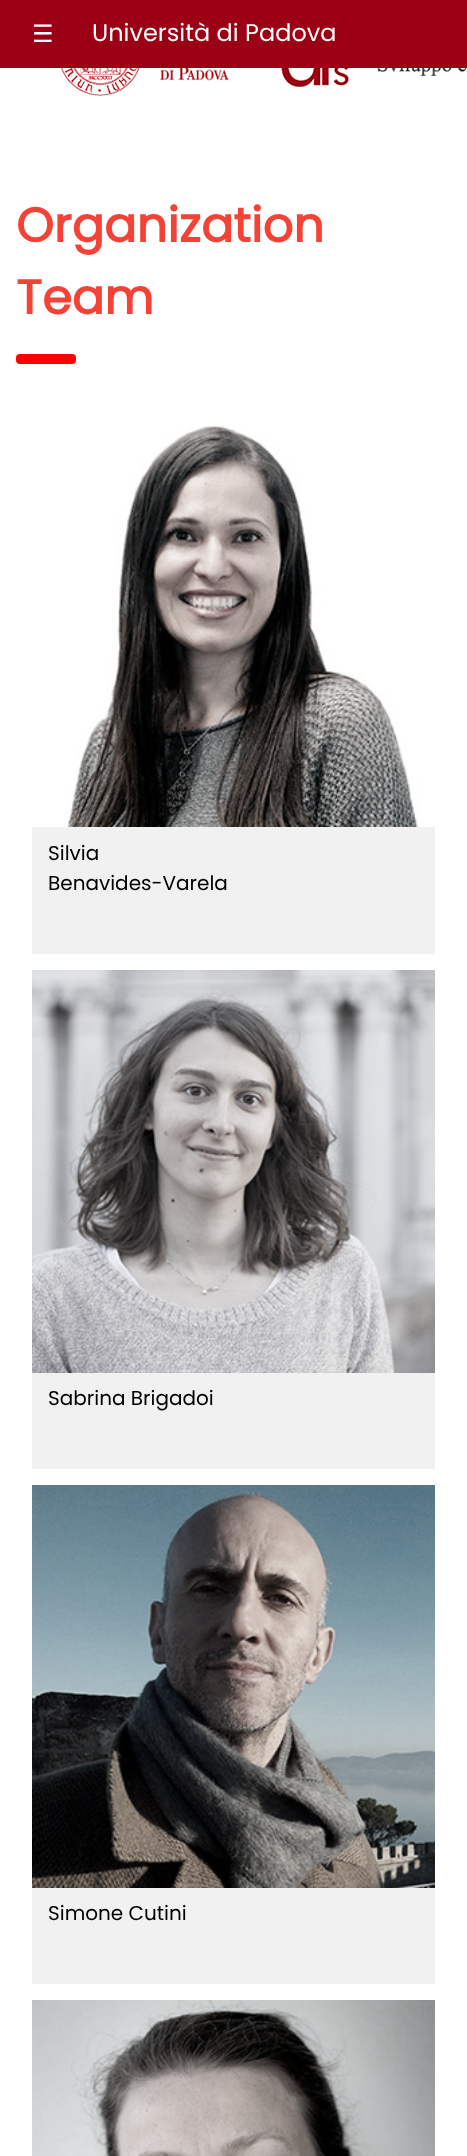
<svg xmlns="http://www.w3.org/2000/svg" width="467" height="2156">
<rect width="100%" height="100%" fill="#fff"/>
<rect width="467" height="68" fill="#9b0014"/>
<text x="32" y="42" style="font-family:DejaVu Sans;font-size:24px;fill:#fff">☰</text>
<text x="92" y="41" style="font-family:Poppins;font-size:24px;fill:#fff">Università di Padova</text>
<image x="58" y="68" width="409" height="28" href="media/1.png"/>
<text x="16" y="242" style="font-family:Poppins;font-size:48px;font-weight:bold;fill:#f44336">Organization</text>
<text x="16" y="314" style="font-family:Poppins;font-size:48px;font-weight:bold;fill:#f44336">Team</text>
<rect x="16" y="354" width="60" height="10" rx="4" fill="#f00"/>
<rect x="32" y="827" width="403" height="127" fill="#f1f1f1"/>
<image x="32" y="424" width="403" height="403" href="media/2.png"/>
<text x="48" y="860" style="font-family:Poppins;font-size:20px;fill:#000">Silvia</text>
<text x="48" y="890" style="font-family:Poppins;font-size:20px;fill:#000">Benavides-Varela</text>
<rect x="32" y="1373" width="403" height="96" fill="#f1f1f1"/>
<image x="32" y="970" width="403" height="403" href="media/3.png"/>
<text x="48" y="1405" style="font-family:Poppins;font-size:20px;fill:#000">Sabrina Brigadoi</text>
<rect x="32" y="1888" width="403" height="96" fill="#f1f1f1"/>
<image x="32" y="1485" width="403" height="403" href="media/4.png"/>
<text x="48" y="1920" style="font-family:Poppins;font-size:20px;fill:#000">Simone Cutini</text>
<image x="32" y="2000" width="403" height="156" href="media/5.png"/>
</svg>
